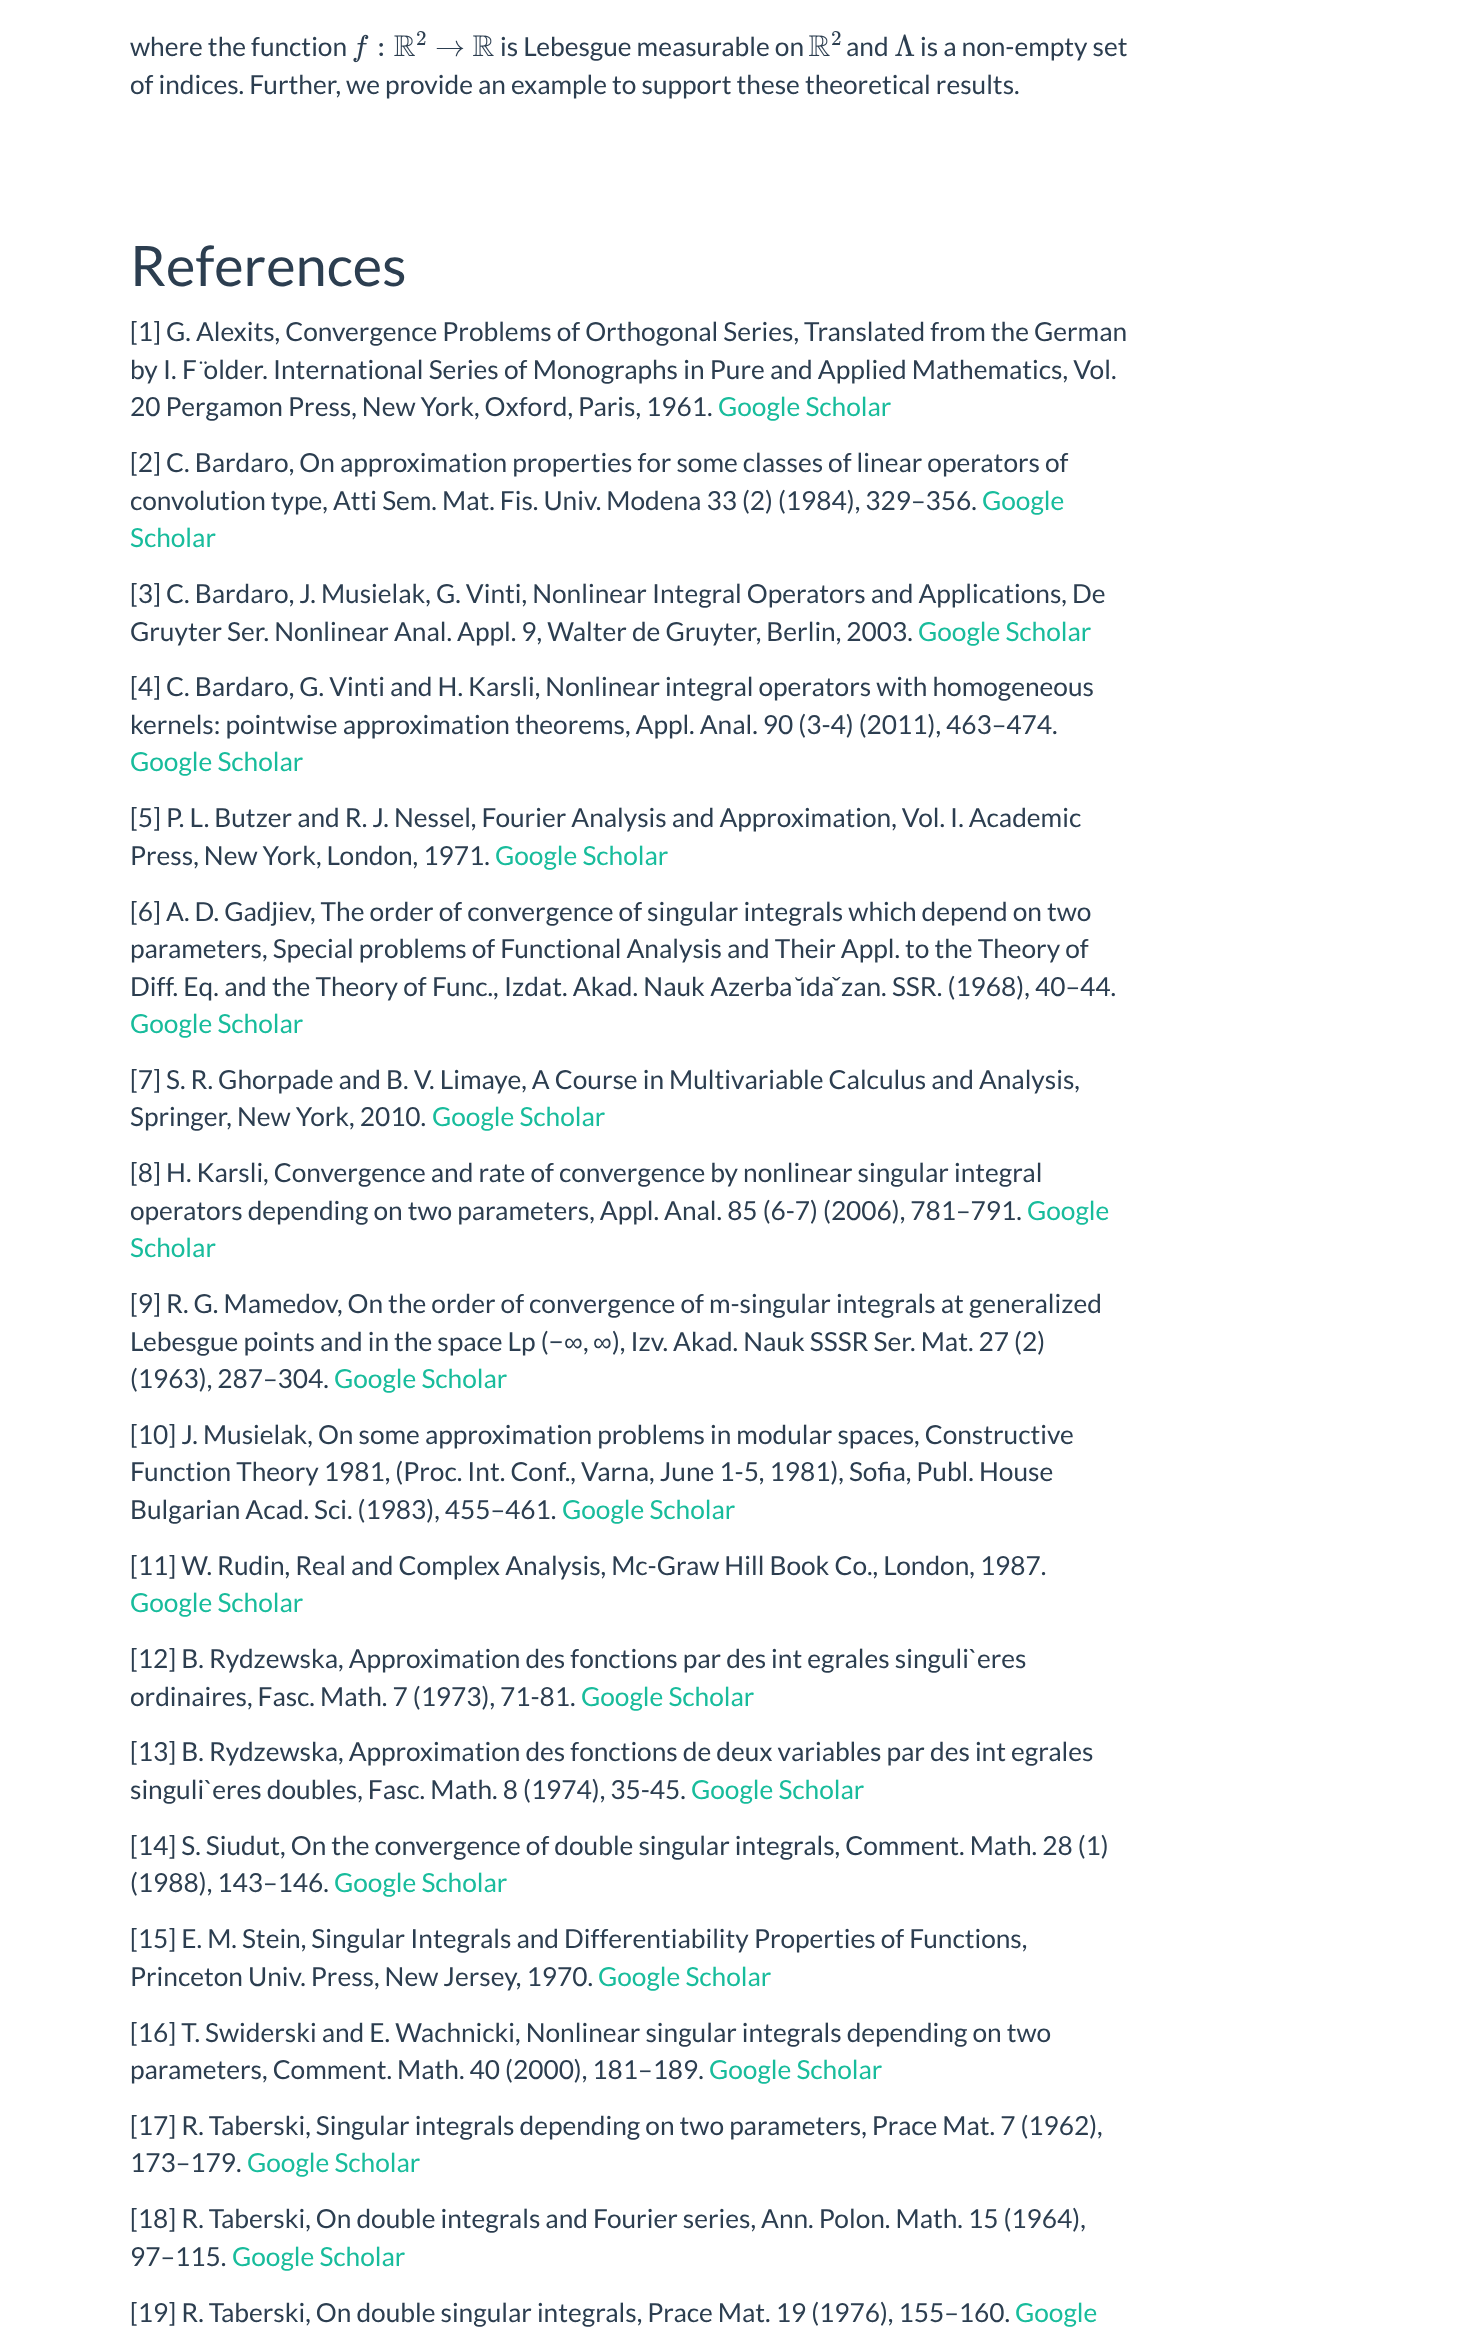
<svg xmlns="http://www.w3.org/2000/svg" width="1467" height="2348">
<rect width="100%" height="100%" fill="#fff"/>
<text x="130" y="56" style="font-family:Lato;font-size:26.25px;fill:#2c3e50">where the function</text>
<image x="353" y="34" width="16" height="29" href="media/1.png"/>
<text x="377" y="56" style="font-family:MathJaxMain;font-size:30px;fill:#2c3e50">:</text>
<image x="394" y="35" width="21" height="21" href="media/2.png"/>
<text x="416" y="45" style="font-family:MathJaxMain;font-size:21px;fill:#2c3e50">2</text>
<text x="435" y="56" style="font-family:MathJaxMain;font-size:30px;fill:#2c3e50">→</text>
<image x="473" y="35" width="21" height="21" href="media/3.png"/>
<text x="500" y="56" style="font-family:Lato;font-size:26.25px;fill:#2c3e50">is Lebesgue measurable on</text>
<image x="809" y="35" width="21" height="21" href="media/3.png"/>
<text x="831" y="45" style="font-family:MathJaxMain;font-size:21px;fill:#2c3e50">2</text>
<text x="846" y="56" style="font-family:Lato;font-size:26.25px;fill:#2c3e50">and</text>
<image x="895" y="34" width="20" height="22" href="media/4.png"/>
<text x="920" y="56" style="font-family:Lato;font-size:26.25px;fill:#2c3e50">is a non-empty set</text>
<text x="130" y="94" style="font-family:Lato;font-size:26.25px;fill:#2c3e50">of indices. Further, we provide an example to support these theoretical results.</text>
<text x="130" y="286" style="font-family:Lato;font-size:56px;fill:#2c3e50">References</text>
<text x="130" y="341" style="font-family:Lato;font-size:26.25px;fill:#2c3e50">[1] G. Alexits, Convergence Problems of Orthogonal Series, Translated from the German</text>
<text x="130" y="379" word-spacing="0.2" style="font-family:Lato;font-size:26.25px;fill:#2c3e50">by I. F ̈older. International Series of Monographs in Pure and Applied Mathematics, Vol.</text>
<text x="130" y="416" style="font-family:Lato;font-size:26.25px;fill:#2c3e50">20 Pergamon Press, New York, Oxford, Paris, 1961.</text>
<text x="718" y="416" style="font-family:Lato;font-size:26.25px;fill:#18bc9c">Google Scholar</text>
<text x="130" y="472" style="font-family:Lato;font-size:26.25px;fill:#2c3e50">[2] C. Bardaro, On approximation properties for some classes of linear operators of</text>
<text x="130" y="510" style="font-family:Lato;font-size:26.25px;fill:#2c3e50">convolution type, Atti Sem. Mat. Fis. Univ. Modena 33 (2) (1984), 329–356.</text>
<text x="982" y="510" style="font-family:Lato;font-size:26.25px;fill:#18bc9c">Google</text>
<text x="130" y="547" style="font-family:Lato;font-size:26.25px;fill:#18bc9c">Scholar</text>
<text x="130" y="603" style="font-family:Lato;font-size:26.25px;fill:#2c3e50">[3] C. Bardaro, J. Musielak, G. Vinti, Nonlinear Integral Operators and Applications, De</text>
<text x="130" y="641" style="font-family:Lato;font-size:26.25px;fill:#2c3e50">Gruyter Ser. Nonlinear Anal. Appl. 9, Walter de Gruyter, Berlin, 2003.</text>
<text x="918" y="641" style="font-family:Lato;font-size:26.25px;fill:#18bc9c">Google Scholar</text>
<text x="130" y="696" style="font-family:Lato;font-size:26.25px;fill:#2c3e50">[4] C. Bardaro, G. Vinti and H. Karsli, Nonlinear integral operators with homogeneous</text>
<text x="130" y="734" style="font-family:Lato;font-size:26.25px;fill:#2c3e50">kernels: pointwise approximation theorems, Appl. Anal. 90 (3-4) (2011), 463–474.</text>
<text x="130" y="771" style="font-family:Lato;font-size:26.25px;fill:#18bc9c">Google Scholar</text>
<text x="130" y="827" style="font-family:Lato;font-size:26.25px;fill:#2c3e50">[5] P. L. Butzer and R. J. Nessel, Fourier Analysis and Approximation, Vol. I. Academic</text>
<text x="130" y="865" style="font-family:Lato;font-size:26.25px;fill:#2c3e50">Press, New York, London, 1971.</text>
<text x="495" y="865" style="font-family:Lato;font-size:26.25px;fill:#18bc9c">Google Scholar</text>
<text x="130" y="921" style="font-family:Lato;font-size:26.25px;fill:#2c3e50">[6] A. D. Gadjiev, The order of convergence of singular integrals which depend on two</text>
<text x="130" y="958" style="font-family:Lato;font-size:26.25px;fill:#2c3e50">parameters, Special problems of Functional Analysis and Their Appl. to the Theory of</text>
<text x="130" y="996" word-spacing="0.25" style="font-family:Lato;font-size:26.25px;fill:#2c3e50">Diff. Eq. and the Theory of Func., Izdat. Akad. Nauk Azerba ̆ıda</text>
<text x="832" y="996" style="font-family:Liberation Sans;font-size:26.25px;fill:#2c3e50">ˇ</text>
<text x="841" y="996" word-spacing="0.25" style="font-family:Lato;font-size:26.25px;fill:#2c3e50">zan. SSR. (1968), 40–44.</text>
<text x="130" y="1033" style="font-family:Lato;font-size:26.25px;fill:#18bc9c">Google Scholar</text>
<text x="130" y="1089" style="font-family:Lato;font-size:26.25px;fill:#2c3e50">[7] S. R. Ghorpade and B. V. Limaye, A Course in Multivariable Calculus and Analysis,</text>
<text x="130" y="1126" style="font-family:Lato;font-size:26.25px;fill:#2c3e50">Springer, New York, 2010.</text>
<text x="432" y="1126" style="font-family:Lato;font-size:26.25px;fill:#18bc9c">Google Scholar</text>
<text x="130" y="1182" style="font-family:Lato;font-size:26.25px;fill:#2c3e50">[8] H. Karsli, Convergence and rate of convergence by nonlinear singular integral</text>
<text x="130" y="1220" style="font-family:Lato;font-size:26.25px;fill:#2c3e50">operators depending on two parameters, Appl. Anal. 85 (6-7) (2006), 781–791.</text>
<text x="1027" y="1220" style="font-family:Lato;font-size:26.25px;fill:#18bc9c">Google</text>
<text x="130" y="1257" style="font-family:Lato;font-size:26.25px;fill:#18bc9c">Scholar</text>
<text x="130" y="1313" style="font-family:Lato;font-size:26.25px;fill:#2c3e50">[9] R. G. Mamedov, On the order of convergence of m-singular integrals at generalized</text>
<text x="130" y="1351" style="font-family:Lato;font-size:26.25px;fill:#2c3e50">Lebesgue points and in the space Lp (−</text>
<text x="564" y="1351" style="font-family:Liberation Sans;font-size:26.25px;fill:#2c3e50">∞</text>
<text x="593" y="1351" style="font-family:Liberation Sans;font-size:26.25px;fill:#2c3e50">∞</text>
<text x="612" y="1351" style="font-family:Lato;font-size:26.25px;fill:#2c3e50">), Izv. Akad. Nauk SSSR Ser. Mat. 27 (2)</text>
<text x="583" y="1351" style="font-family:Lato;font-size:26.25px;fill:#2c3e50">,</text>
<text x="130" y="1388" style="font-family:Lato;font-size:26.25px;fill:#2c3e50">(1963), 287–304.</text>
<text x="334" y="1388" style="font-family:Lato;font-size:26.25px;fill:#18bc9c">Google Scholar</text>
<text x="130" y="1444" style="font-family:Lato;font-size:26.25px;fill:#2c3e50">[10] J. Musielak, On some approximation problems in modular spaces, Constructive</text>
<text x="130" y="1481" style="font-family:Lato;font-size:26.25px;fill:#2c3e50">Function Theory 1981, (Proc. Int. Conf., Varna, June 1-5, 1981), Sofia, Publ. House</text>
<text x="130" y="1519" style="font-family:Lato;font-size:26.25px;fill:#2c3e50">Bulgarian Acad. Sci. (1983), 455–461.</text>
<text x="562" y="1519" style="font-family:Lato;font-size:26.25px;fill:#18bc9c">Google Scholar</text>
<text x="130" y="1575" style="font-family:Lato;font-size:26.25px;fill:#2c3e50">[11] W. Rudin, Real and Complex Analysis, Mc-Graw Hill Book Co., London, 1987.</text>
<text x="130" y="1612" style="font-family:Lato;font-size:26.25px;fill:#18bc9c">Google Scholar</text>
<text x="130" y="1668" style="font-family:Lato;font-size:26.25px;fill:#2c3e50">[12] B. Rydzewska, Approximation des fonctions par des int egrales singuli`eres</text>
<text x="130" y="1706" style="font-family:Lato;font-size:26.25px;fill:#2c3e50">ordinaires, Fasc. Math. 7 (1973), 71-81.</text>
<text x="581" y="1706" style="font-family:Lato;font-size:26.25px;fill:#18bc9c">Google Scholar</text>
<text x="130" y="1761" style="font-family:Lato;font-size:26.25px;fill:#2c3e50">[13] B. Rydzewska, Approximation des fonctions de deux variables par des int egrales</text>
<text x="130" y="1799" style="font-family:Lato;font-size:26.25px;fill:#2c3e50">singuli`eres doubles, Fasc. Math. 8 (1974), 35-45.</text>
<text x="691" y="1799" style="font-family:Lato;font-size:26.25px;fill:#18bc9c">Google Scholar</text>
<text x="130" y="1855" style="font-family:Lato;font-size:26.25px;fill:#2c3e50">[14] S. Siudut, On the convergence of double singular integrals, Comment. Math. 28 (1)</text>
<text x="130" y="1892" style="font-family:Lato;font-size:26.25px;fill:#2c3e50">(1988), 143–146.</text>
<text x="334" y="1892" style="font-family:Lato;font-size:26.25px;fill:#18bc9c">Google Scholar</text>
<text x="130" y="1948" style="font-family:Lato;font-size:26.25px;fill:#2c3e50">[15] E. M. Stein, Singular Integrals and Differentiability Properties of Functions,</text>
<text x="130" y="1986" style="font-family:Lato;font-size:26.25px;fill:#2c3e50">Princeton Univ. Press, New Jersey, 1970.</text>
<text x="598" y="1986" style="font-family:Lato;font-size:26.25px;fill:#18bc9c">Google Scholar</text>
<text x="130" y="2042" style="font-family:Lato;font-size:26.25px;fill:#2c3e50">[16] T. Swiderski and E. Wachnicki, Nonlinear singular integrals depending on two</text>
<text x="130" y="2079" style="font-family:Lato;font-size:26.25px;fill:#2c3e50">parameters, Comment. Math. 40 (2000), 181–189.</text>
<text x="709" y="2079" style="font-family:Lato;font-size:26.25px;fill:#18bc9c">Google Scholar</text>
<text x="130" y="2135" style="font-family:Lato;font-size:26.25px;fill:#2c3e50">[17] R. Taberski, Singular integrals depending on two parameters, Prace Mat. 7 (1962),</text>
<text x="130" y="2172" style="font-family:Lato;font-size:26.25px;fill:#2c3e50">173–179.</text>
<text x="247" y="2172" style="font-family:Lato;font-size:26.25px;fill:#18bc9c">Google Scholar</text>
<text x="130" y="2228" style="font-family:Lato;font-size:26.25px;fill:#2c3e50">[18] R. Taberski, On double integrals and Fourier series, Ann. Polon. Math. 15 (1964),</text>
<text x="130" y="2266" style="font-family:Lato;font-size:26.25px;fill:#2c3e50">97–115.</text>
<text x="232" y="2266" style="font-family:Lato;font-size:26.25px;fill:#18bc9c">Google Scholar</text>
<text x="130" y="2322" style="font-family:Lato;font-size:26.25px;fill:#2c3e50">[19] R. Taberski, On double singular integrals, Prace Mat. 19 (1976), 155–160.</text>
<text x="1015" y="2322" style="font-family:Lato;font-size:26.25px;fill:#18bc9c">Google</text>
</svg>
